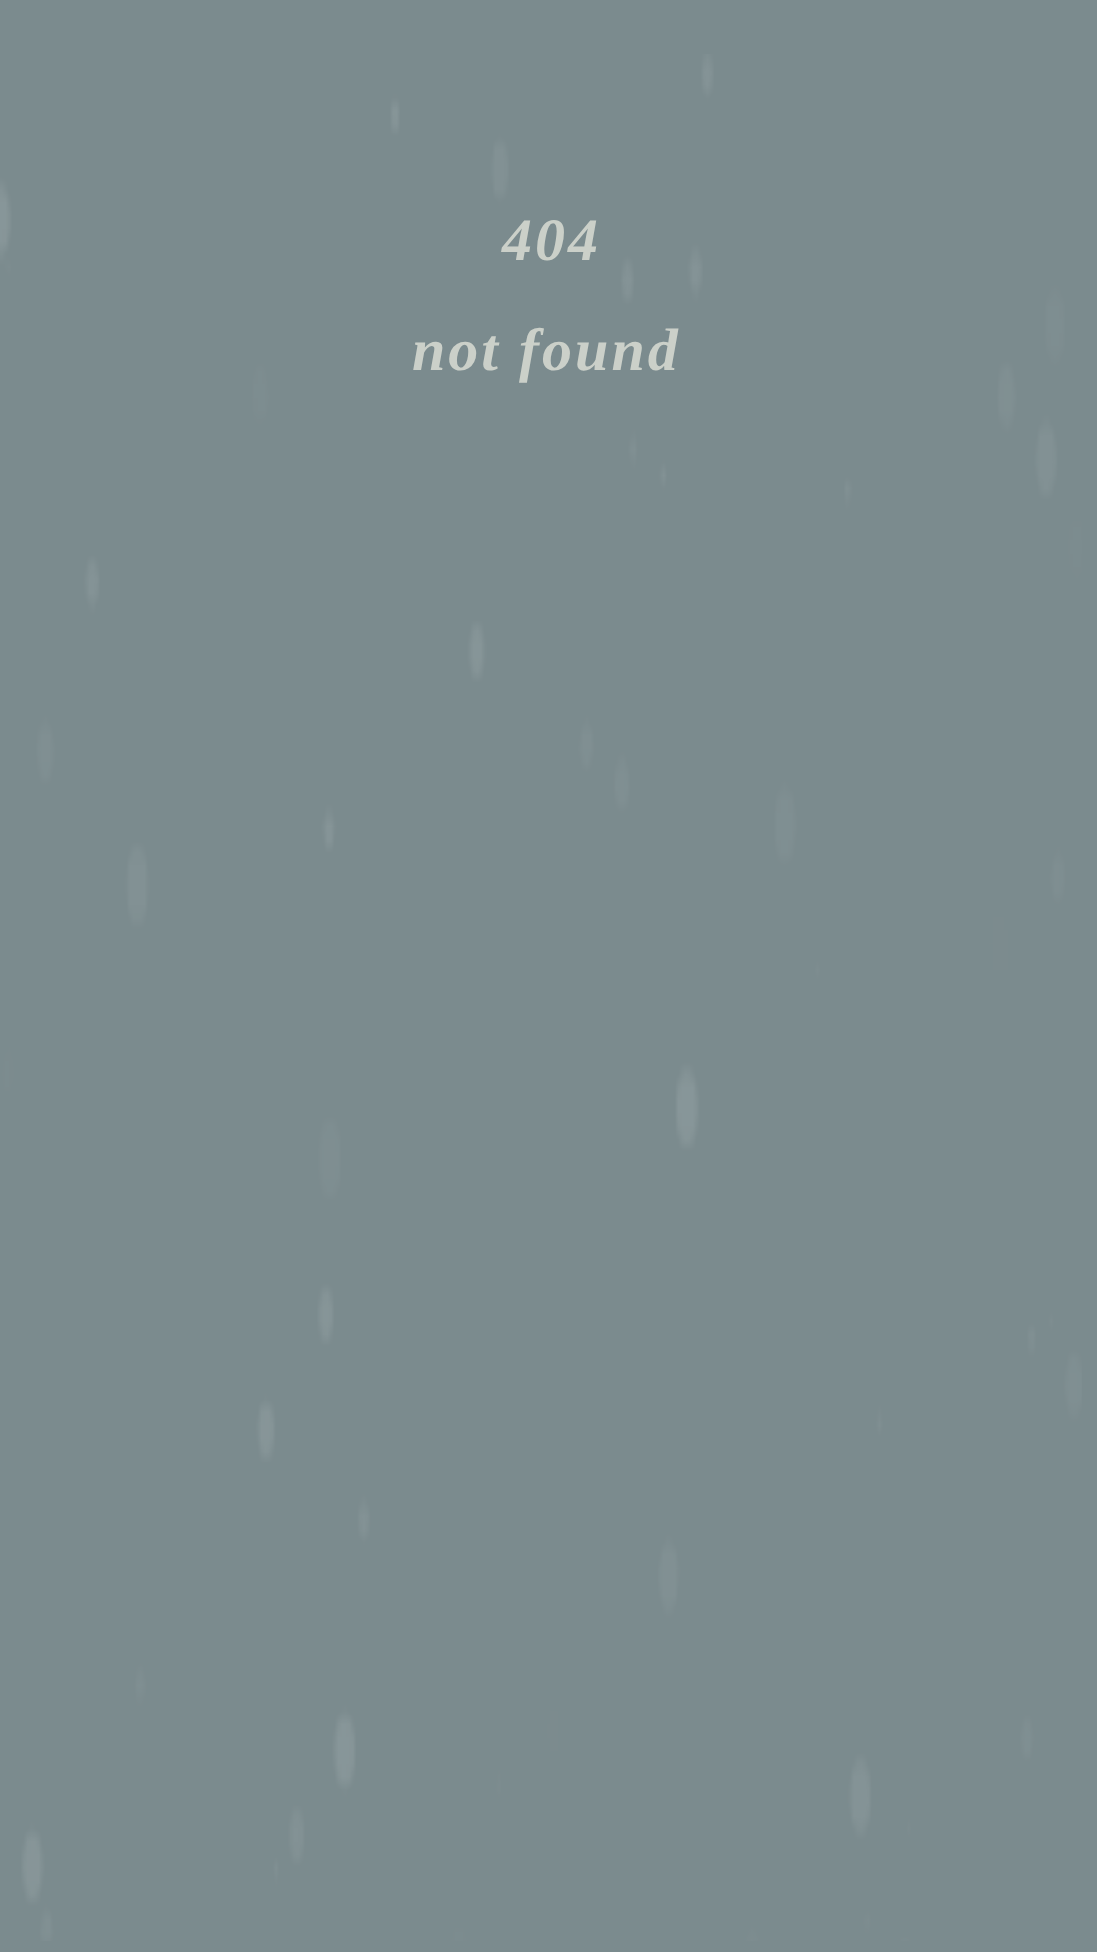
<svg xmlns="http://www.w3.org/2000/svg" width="1097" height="1952">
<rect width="100%" height="100%" fill="#7b8b8e"/>
<text x="502" y="260" style="font-family:Liberation Serif;font-size:60px;font-weight:bold;font-style:italic;letter-spacing:3px;fill:#cbd0c9">404</text>
<text x="412" y="370" style="font-family:Liberation Serif;font-size:60px;font-weight:bold;font-style:italic;letter-spacing:3px;fill:#cbd0c9">not found</text>
<image x="0" y="54" width="1082" height="1887" href="media/1.png"/>
</svg>
